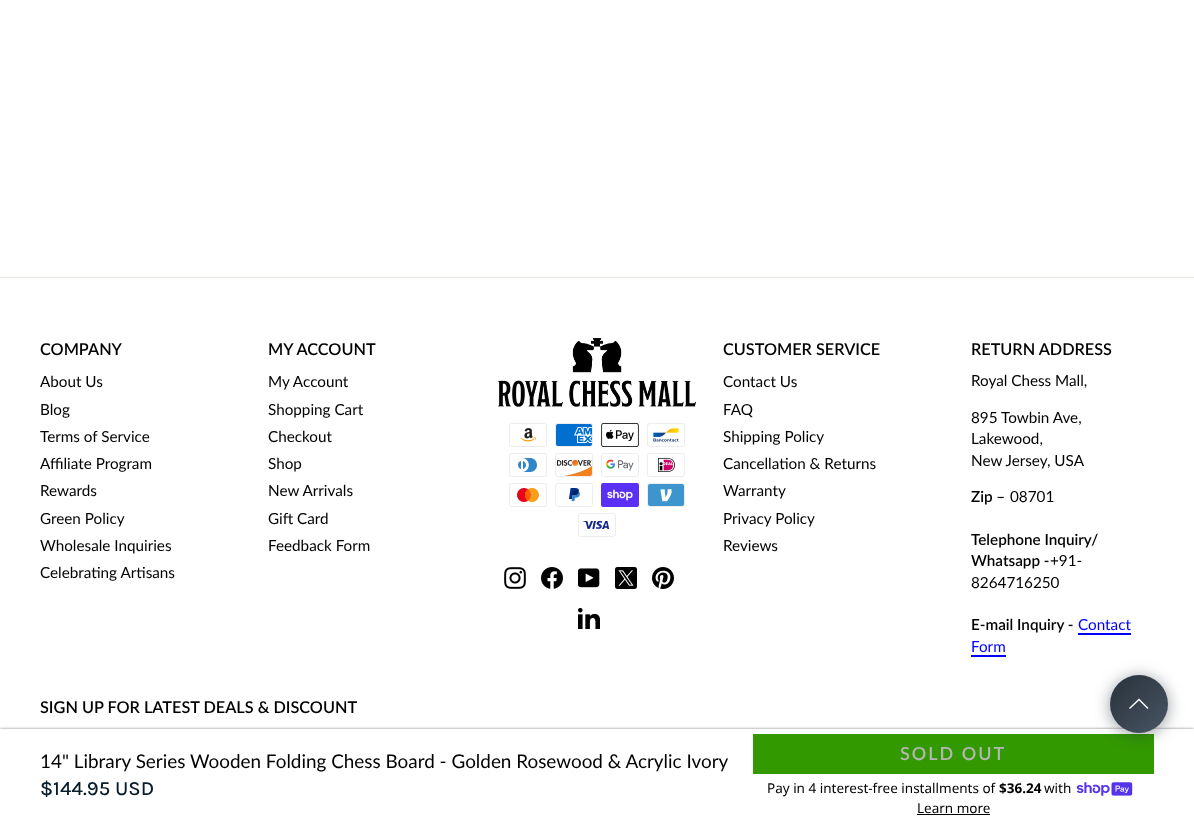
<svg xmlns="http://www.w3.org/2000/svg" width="1194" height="823">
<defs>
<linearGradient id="g1" gradientUnits="userSpaceOnUse" x1="1110" y1="675" x2="1168" y2="733"><stop offset="0" stop-color="#29323c"/><stop offset="1" stop-color="#485563"/></linearGradient>
</defs>
<rect width="100%" height="100%" fill="#fff"/>
<rect y="277" width="1194" height="1" fill="#e8e8e1"/>
<text x="40" y="355" style="font-family:Lato;font-size:16.25px;font-weight:600;fill:#000">COMPANY</text>
<text x="40" y="387" style="font-family:Lato;font-size:15.25px;fill:#000">About Us</text>
<text x="40" y="415" style="font-family:Lato;font-size:15.25px;fill:#000">Blog</text>
<text x="40" y="442" style="font-family:Lato;font-size:15.25px;fill:#000">Terms of Service</text>
<text x="40" y="469" style="font-family:Lato;font-size:15.25px;fill:#000">Affiliate Program</text>
<text x="40" y="496" style="font-family:Lato;font-size:15.25px;fill:#000">Rewards</text>
<text x="40" y="524" style="font-family:Lato;font-size:15.25px;fill:#000">Green Policy</text>
<text x="40" y="551" style="font-family:Lato;font-size:15.25px;fill:#000">Wholesale Inquiries</text>
<text x="40" y="578" style="font-family:Lato;font-size:15.25px;fill:#000">Celebrating Artisans</text>
<text x="268" y="355" style="font-family:Lato;font-size:16.25px;font-weight:600;fill:#000">MY ACCOUNT</text>
<text x="268" y="387" style="font-family:Lato;font-size:15.25px;fill:#000">My Account</text>
<text x="268" y="415" style="font-family:Lato;font-size:15.25px;fill:#000">Shopping Cart</text>
<text x="268" y="442" style="font-family:Lato;font-size:15.25px;fill:#000">Checkout</text>
<text x="268" y="469" style="font-family:Lato;font-size:15.25px;fill:#000">Shop</text>
<text x="268" y="496" style="font-family:Lato;font-size:15.25px;fill:#000">New Arrivals</text>
<text x="268" y="524" style="font-family:Lato;font-size:15.25px;fill:#000">Gift Card</text>
<text x="268" y="551" style="font-family:Lato;font-size:15.25px;fill:#000">Feedback Form</text>
<image x="498" y="338" width="198" height="69" href="media/1.png"/>
<image x="509" y="423" width="38" height="24" href="media/2.png"/>
<image x="555" y="423" width="38" height="24" href="media/3.png"/>
<image x="601" y="423" width="38" height="24" href="media/4.png"/>
<image x="647" y="423" width="38" height="24" href="media/5.png"/>
<image x="509" y="453" width="38" height="24" href="media/6.png"/>
<image x="555" y="453" width="38" height="24" href="media/7.png"/>
<image x="601" y="453" width="38" height="24" href="media/8.png"/>
<image x="647" y="453" width="38" height="24" href="media/9.png"/>
<image x="509" y="483" width="38" height="24" href="media/10.png"/>
<image x="555" y="483" width="38" height="24" href="media/11.png"/>
<image x="601" y="483" width="38" height="24" href="media/12.png"/>
<image x="647" y="483" width="38" height="24" href="media/13.png"/>
<image x="578" y="513" width="38" height="24" href="media/14.png"/>
<image x="504" y="567" width="22" height="22" href="media/15.png"/>
<image x="541" y="567" width="22" height="22" href="media/16.png"/>
<image x="578" y="568" width="22" height="20" href="media/17.png"/>
<image x="615" y="567" width="22" height="22" href="media/18.png"/>
<image x="652" y="567" width="22" height="22" href="media/19.png"/>
<image x="578" y="607" width="22" height="22" href="media/20.png"/>
<text x="723" y="355" style="font-family:Lato;font-size:16.25px;font-weight:600;fill:#000">CUSTOMER SERVICE</text>
<text x="723" y="387" style="font-family:Lato;font-size:15.25px;fill:#000">Contact Us</text>
<text x="723" y="415" style="font-family:Lato;font-size:15.25px;fill:#000">FAQ</text>
<text x="723" y="442" style="font-family:Lato;font-size:15.25px;fill:#000">Shipping Policy</text>
<text x="723" y="469" style="font-family:Lato;font-size:15.25px;fill:#000">Cancellation &amp; Returns</text>
<text x="723" y="496" style="font-family:Lato;font-size:15.25px;fill:#000">Warranty</text>
<text x="723" y="524" style="font-family:Lato;font-size:15.25px;fill:#000">Privacy Policy</text>
<text x="723" y="551" style="font-family:Lato;font-size:15.25px;fill:#000">Reviews</text>
<text x="971" y="355" style="font-family:Lato;font-size:16.25px;font-weight:600;fill:#000">RETURN ADDRESS</text>
<text x="971" y="386" style="font-family:Lato;font-size:15.25px;fill:#000">Royal Chess Mall,</text>
<text x="971" y="423" style="font-family:Lato;font-size:15.25px;fill:#000">895 Towbin Ave,</text>
<text x="971" y="444" style="font-family:Lato;font-size:15.25px;fill:#000">Lakewood,</text>
<text x="971" y="466" style="font-family:Lato;font-size:15.25px;fill:#000">New Jersey, USA</text>
<text x="971" y="502" style="font-family:Lato;font-size:15.25px;font-weight:600;fill:#000">Zip –</text>
<text x="1010" y="502" style="font-family:Lato;font-size:15.25px;fill:#000">08701</text>
<text x="971" y="545" style="font-family:Lato;font-size:15.25px;font-weight:600;fill:#000">Telephone Inquiry/</text>
<text x="971" y="566" style="font-family:Lato;font-size:15.25px;font-weight:600;fill:#000">Whatsapp -</text>
<text x="1050" y="566" style="font-family:Lato;font-size:15.25px;fill:#000">+91-</text>
<text x="971" y="588" style="font-family:Lato;font-size:15.25px;fill:#000">8264716250</text>
<text x="971" y="630" style="font-family:Lato;font-size:15.25px;font-weight:600;fill:#000">E-mail Inquiry -</text>
<text x="1078" y="630" style="font-family:Lato;font-size:15.25px;fill:#00f">Contact</text>
<rect x="1078" y="633" width="53" height="2" fill="#00f"/>
<text x="971" y="652" style="font-family:Lato;font-size:15.25px;fill:#00f">Form</text>
<rect x="971" y="655" width="35" height="2" fill="#00f"/>
<text x="40" y="713" style="font-family:Lato;font-size:16.25px;font-weight:600;fill:#000">SIGN UP FOR LATEST DEALS &amp; DISCOUNT</text>
<rect y="729" width="1194" height="94" fill="#00000080" filter="blur(1.5px)"/>
<rect y="729" width="1194" height="94" fill="#fff"/>
<rect x="753" y="734" width="401" height="40" fill="#329901"/>
<rect x="1110" y="677" width="58" height="58" rx="29" fill="#29323c80" filter="blur(8px)"/>
<circle cx="1139" cy="704" r="29" fill="url(#g1)"/>
<path d="M1148 708.5l-9-9l-9.5 9" fill="none" stroke="#fff" stroke-width="1.4"/>
<text x="40" y="768" style="font-family:Lato;font-size:18.9px;fill:#000">14" Library Series Wooden Folding Chess Board - Golden Rosewood &amp; Acrylic Ivory</text>
<text x="40" y="795" style="font-family:Karla;font-size:20px;font-weight:500;fill:#081e2d">$144.95 USD</text>
<text x="900" y="760" style="font-family:Lato;font-size:18px;font-weight:600;letter-spacing:2px;fill:#b6b6b6">SOLD OUT</text>
<text x="767" y="793" style="font-family:Noto Sans;font-size:13.5px;fill:#000">Pay in 4 interest-free installments of</text>
<text x="999" y="793" style="font-family:Noto Sans;font-size:13.5px;font-weight:bold;fill:#000">$36.24</text>
<text x="1044" y="793" style="font-family:Noto Sans;font-size:13.5px;fill:#000">with</text>
<image x="1076" y="782" width="57" height="14" href="media/21.png"/>
<text x="917" y="813" style="font-family:Noto Sans;font-size:13.5px;fill:#000">Learn more</text>
<rect x="917" y="814" width="73" height="1" fill="#000"/>
</svg>
